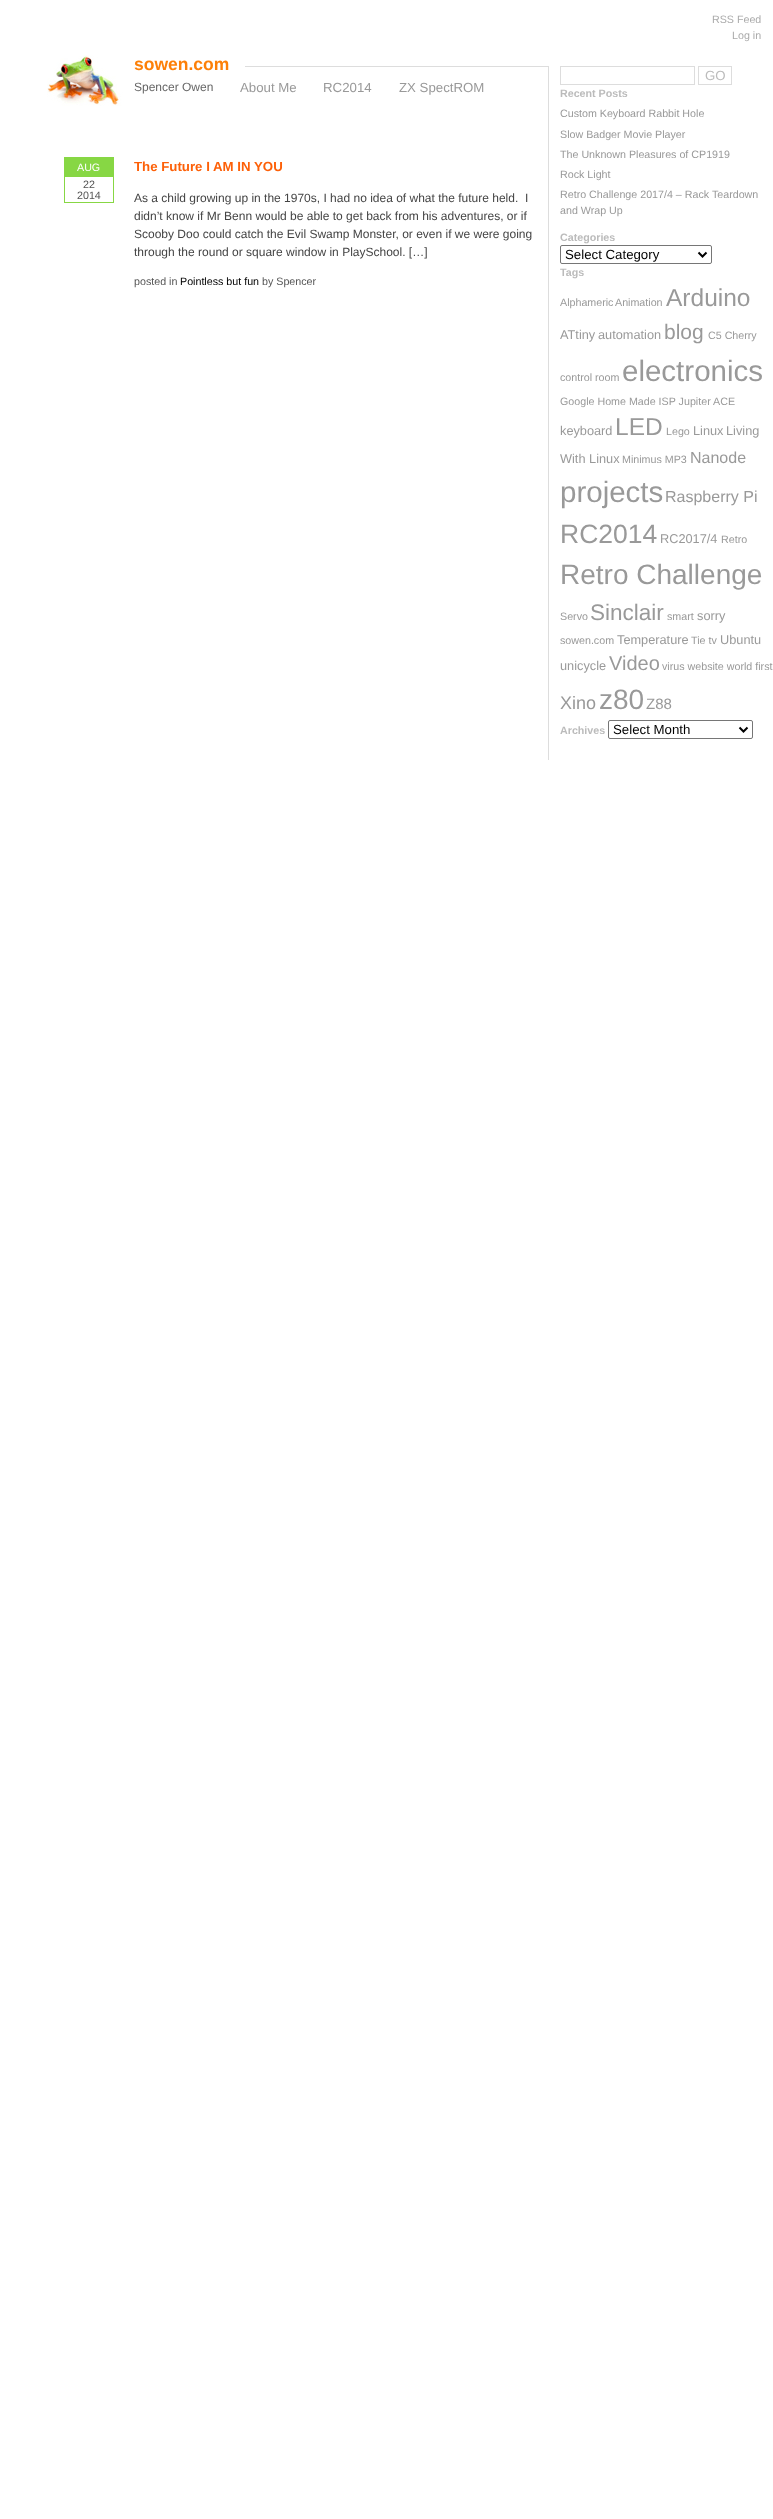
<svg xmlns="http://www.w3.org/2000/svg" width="773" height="2519">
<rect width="100%" height="100%" fill="#fff"/>
<image x="47" y="55" width="77" height="51" href="media/1.png"/>
<text x="712" y="23" style="font-family:Liberation Sans;font-size:10.7px;fill:#aaa">RSS Feed</text>
<text x="732" y="39" style="font-family:Liberation Sans;font-size:10.7px;fill:#aaa">Log in</text>
<text x="134" y="70" style="font-family:Liberation Sans;font-size:17.5px;font-weight:bold;fill:#fd8008">sowen.com</text>
<text x="134" y="91" style="font-family:Liberation Sans;font-size:12px;fill:#666">Spencer Owen</text>
<text x="240" y="92" style="font-family:Liberation Sans;font-size:13.25px;fill:#999">About Me</text>
<text x="323" y="92" style="font-family:Liberation Sans;font-size:13.25px;fill:#999">RC2014</text>
<text x="399" y="92" style="font-family:Liberation Sans;font-size:13.25px;fill:#999">ZX SpectROM</text>
<rect x="245" y="66" width="303" height="1" fill="#ddd"/>
<rect x="64" y="157" width="50" height="20" fill="#87d744"/>
<text x="77" y="171" style="font-family:Liberation Sans;font-size:10.7px;fill:#fff">AUG</text>
<rect x="113" y="177" width="1" height="26" fill="#87d744"/>
<rect x="64" y="202" width="50" height="1" fill="#87d744"/>
<rect x="64" y="177" width="1" height="26" fill="#87d744"/>
<text x="83" y="188" style="font-family:Liberation Sans;font-size:10.7px;fill:#555">22</text>
<text x="77" y="199" style="font-family:Liberation Sans;font-size:10.7px;fill:#555">2014</text>
<text x="134" y="171" style="font-family:Liberation Sans;font-size:13.25px;font-weight:bold;fill:#fd6008">The Future I AM IN YOU</text>
<text x="134" y="202" style="font-family:Liberation Sans;font-size:12px;fill:#444" xml:space="preserve">As a child growing up in the 1970s, I had no idea of what the future held.  I</text>
<text x="134" y="220" style="font-family:Liberation Sans;font-size:12px;fill:#444">didn’t know if Mr Benn would be able to get back from his adventures, or if</text>
<text x="134" y="238" style="font-family:Liberation Sans;font-size:12px;fill:#444">Scooby Doo could catch the Evil Swamp Monster, or even if we were going</text>
<text x="134" y="256" style="font-family:Liberation Sans;font-size:12px;fill:#444">through the round or square window in PlaySchool. […]</text>
<text x="134" y="285" style="font-family:Liberation Sans;font-size:10.7px;fill:#555">posted in</text>
<text x="180" y="285" style="font-family:Liberation Sans;font-size:10.7px;fill:#000">Pointless but fun</text>
<text x="262" y="285" style="font-family:Liberation Sans;font-size:10.7px;fill:#555">by Spencer</text>
<rect x="548" y="66" width="1" height="694" fill="#ddd"/>
<rect x="560.5" y="66.5" width="134" height="18" fill="none" stroke="#ddd"/>
<rect x="698.5" y="66.5" width="33" height="18" fill="none" stroke="#ddd"/>
<text x="705" y="80" style="font-family:Liberation Sans;font-size:13.25px;fill:#bbb">GO</text>
<text x="560" y="97" style="font-family:Liberation Sans;font-size:10.7px;font-weight:bold;fill:#bbb">Recent Posts</text>
<text x="560" y="117" style="font-family:Liberation Sans;font-size:10.7px;fill:#999">Custom Keyboard Rabbit Hole</text>
<text x="560" y="138" style="font-family:Liberation Sans;font-size:10.7px;fill:#999">Slow Badger Movie Player</text>
<text x="560" y="158" style="font-family:Liberation Sans;font-size:10.7px;fill:#999">The Unknown Pleasures of CP1919</text>
<text x="560" y="178" style="font-family:Liberation Sans;font-size:10.7px;fill:#999">Rock Light</text>
<text x="560" y="198" style="font-family:Liberation Sans;font-size:10.7px;fill:#999">Retro Challenge 2017/4 – Rack Teardown</text>
<text x="560" y="214" style="font-family:Liberation Sans;font-size:10.7px;fill:#999">and Wrap Up</text>
<text x="560" y="241" style="font-family:Liberation Sans;font-size:10.7px;font-weight:bold;fill:#bbb">Categories</text>
<rect x="560.5" y="245.5" width="151" height="18" rx="1.5" fill="none" stroke="#767676"/>
<path d="M698.5 252.5l4 4l4-4" fill="none" stroke="#000" stroke-width="2"/>
<text x="565" y="259" style="font-family:Liberation Sans;font-size:13.25px;fill:#000">Select Category</text>
<text x="560" y="276" style="font-family:Liberation Sans;font-size:10.7px;font-weight:bold;fill:#bbb">Tags</text>
<text x="560" y="306" style="font-family:Liberation Sans;font-size:10.7px;fill:#999">Alphameric</text>
<text x="615" y="306" style="font-family:Liberation Sans;font-size:10.7px;fill:#999">Animation</text>
<text x="666" y="306" style="font-family:Liberation Sans;font-size:24.5px;fill:#999">Arduino</text>
<text x="560" y="339" style="font-family:Liberation Sans;font-size:12.75px;fill:#999">ATtiny</text>
<text x="598" y="339" style="font-family:Liberation Sans;font-size:12.75px;fill:#999">automation</text>
<text x="664" y="339" style="font-family:Liberation Sans;font-size:21px;fill:#999">blog</text>
<text x="708" y="339" style="font-family:Liberation Sans;font-size:10.7px;fill:#999">C5 Cherry</text>
<text x="560" y="381" style="font-family:Liberation Sans;font-size:10.7px;fill:#999">control room</text>
<text x="622" y="381" style="font-family:Liberation Sans;font-size:29.5px;fill:#999">electronics</text>
<text x="560" y="405" style="font-family:Liberation Sans;font-size:10.7px;fill:#999">Google Home Made ISP Jupiter ACE</text>
<text x="560" y="435" style="font-family:Liberation Sans;font-size:12.75px;fill:#999">keyboard</text>
<text x="615" y="435" style="font-family:Liberation Sans;font-size:24.5px;fill:#999">LED</text>
<text x="666" y="435" style="font-family:Liberation Sans;font-size:10.7px;fill:#999">Lego</text>
<text x="693" y="435" style="font-family:Liberation Sans;font-size:12.75px;fill:#999">Linux</text>
<text x="726" y="435" style="font-family:Liberation Sans;font-size:12.75px;fill:#999">Living</text>
<text x="560" y="463" style="font-family:Liberation Sans;font-size:12.75px;fill:#999">With Linux</text>
<text x="622" y="463" style="font-family:Liberation Sans;font-size:10.7px;fill:#999">Minimus MP3</text>
<text x="690" y="463" style="font-family:Liberation Sans;font-size:16px;fill:#999">Nanode</text>
<text x="560" y="502" style="font-family:Liberation Sans;font-size:29.5px;fill:#999">projects</text>
<text x="665" y="502" style="font-family:Liberation Sans;font-size:16px;fill:#999">Raspberry Pi</text>
<text x="560" y="543" style="font-family:Liberation Sans;font-size:26.5px;fill:#999">RC2014</text>
<text x="660" y="543" style="font-family:Liberation Sans;font-size:12.75px;fill:#999">RC2017/4</text>
<text x="721" y="543" style="font-family:Liberation Sans;font-size:10.7px;fill:#999">Retro</text>
<text x="560" y="584" style="font-family:Liberation Sans;font-size:28px;fill:#999">Retro Challenge</text>
<text x="560" y="620" style="font-family:Liberation Sans;font-size:10.7px;fill:#999">Servo</text>
<text x="590" y="620" style="font-family:Liberation Sans;font-size:22.5px;fill:#999">Sinclair</text>
<text x="667" y="620" style="font-family:Liberation Sans;font-size:10.7px;fill:#999">smart</text>
<text x="697" y="620" style="font-family:Liberation Sans;font-size:12.75px;fill:#999">sorry</text>
<text x="560" y="644" style="font-family:Liberation Sans;font-size:10.7px;fill:#999">sowen.com</text>
<text x="617" y="644" style="font-family:Liberation Sans;font-size:12.75px;fill:#999">Temperature</text>
<text x="691" y="644" style="font-family:Liberation Sans;font-size:10.7px;fill:#999">Tie tv</text>
<text x="720" y="644" style="font-family:Liberation Sans;font-size:12.75px;fill:#999">Ubuntu</text>
<text x="560" y="670" style="font-family:Liberation Sans;font-size:12.75px;fill:#999">unicycle</text>
<text x="609" y="670" style="font-family:Liberation Sans;font-size:20px;fill:#999">Video</text>
<text x="662" y="670" style="font-family:Liberation Sans;font-size:10.7px;fill:#999">virus website world first</text>
<text x="560" y="709" style="font-family:Liberation Sans;font-size:18px;fill:#999">Xino</text>
<text x="599" y="709" style="font-family:Liberation Sans;font-size:28px;fill:#999">z80</text>
<text x="646" y="709" style="font-family:Liberation Sans;font-size:15px;fill:#999">Z88</text>
<text x="560" y="734" style="font-family:Liberation Sans;font-size:10.7px;font-weight:bold;fill:#bbb">Archives</text>
<rect x="608.5" y="720.5" width="144" height="18" rx="1.5" fill="none" stroke="#767676"/>
<path d="M739.5 727.5l4 4l4-4" fill="none" stroke="#000" stroke-width="2"/>
<text x="613" y="734" style="font-family:Liberation Sans;font-size:13.25px;fill:#000">Select Month</text>
</svg>
